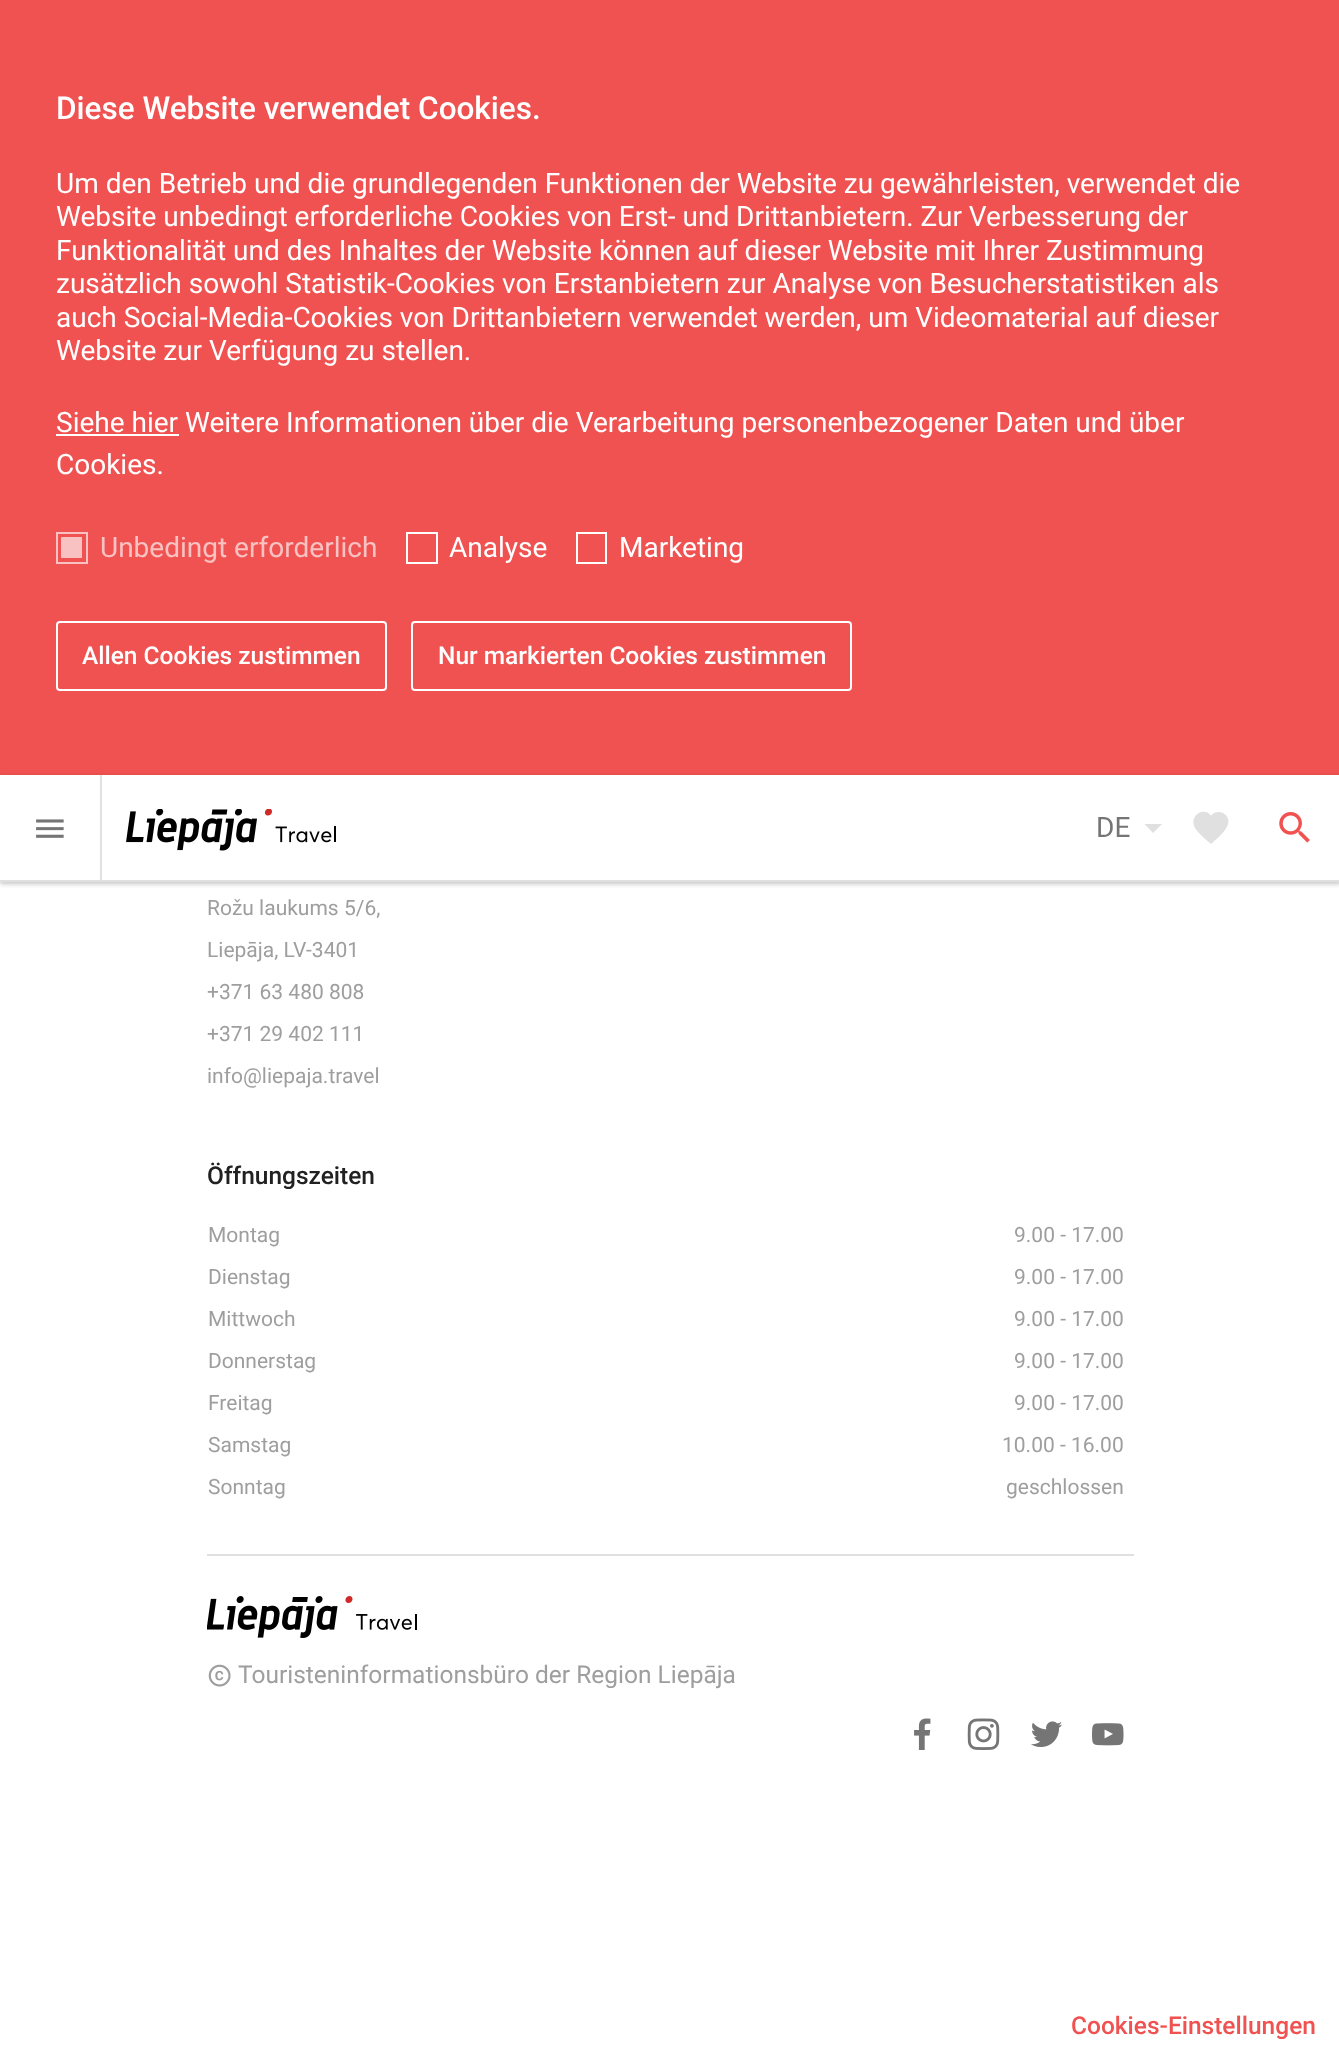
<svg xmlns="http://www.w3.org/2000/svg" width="1339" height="2060">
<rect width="100%" height="100%" fill="#fff"/>
<rect width="1339" height="775" fill="#ef5250"/>
<text x="56" y="119" style="font-family:Roboto;font-size:31.5px;font-weight:500;fill:#fff">Diese Website verwendet Cookies.</text>
<text x="56" y="193" style="font-family:Roboto;font-size:28px;fill:#fff">Um den Betrieb und die grundlegenden Funktionen der Website zu gewährleisten, verwendet die</text>
<text x="56" y="226" style="font-family:Roboto;font-size:28px;fill:#fff">Website unbedingt erforderliche Cookies von Erst- und Drittanbietern. Zur Verbesserung der</text>
<text x="56" y="260" style="font-family:Roboto;font-size:28px;fill:#fff">Funktionalität und des Inhaltes der Website können auf dieser Website mit Ihrer Zustimmung</text>
<text x="56" y="293" style="font-family:Roboto;font-size:28px;fill:#fff">zusätzlich sowohl Statistik-Cookies von Erstanbietern zur Analyse von Besucherstatistiken als</text>
<text x="56" y="327" style="font-family:Roboto;font-size:28px;fill:#fff">auch Social-Media-Cookies von Drittanbietern verwendet werden, um Videomaterial auf dieser</text>
<text x="56" y="360" style="font-family:Roboto;font-size:28px;fill:#fff">Website zur Verfügung zu stellen.</text>
<rect x="56" y="434" width="123" height="2" fill="#fff"/>
<text x="56" y="432" style="font-family:Roboto;font-size:28px;fill:#fff">Siehe hier Weitere Informationen über die Verarbeitung personenbezogener Daten und über</text>
<text x="56" y="474" style="font-family:Roboto;font-size:28px;fill:#fff">Cookies.</text>
<rect x="57" y="533" width="30" height="30" fill="none" stroke="#f9c2c2" stroke-width="2"/>
<rect x="61" y="537" width="21" height="21" fill="#f9c2c2"/>
<text x="100" y="557" style="font-family:Roboto;font-size:28px;fill:#f9c2c2">Unbedingt erforderlich</text>
<rect x="407" y="533" width="30" height="30" fill="none" stroke="#fff" stroke-width="2"/>
<text x="449" y="557" style="font-family:Roboto;font-size:28px;fill:#fff">Analyse</text>
<rect x="577" y="533" width="29" height="30" fill="none" stroke="#fff" stroke-width="2"/>
<text x="619" y="557" style="font-family:Roboto;font-size:28px;fill:#fff">Marketing</text>
<rect x="57" y="622" width="329" height="68" rx="3" fill="none" stroke="#fff" stroke-width="2"/>
<text x="82" y="664" style="font-family:Roboto;font-size:24.5px;font-weight:500;fill:#fff">Allen Cookies zustimmen</text>
<rect x="412" y="622" width="439" height="68" rx="3" fill="none" stroke="#fff" stroke-width="2"/>
<text x="438" y="664" style="font-family:Roboto;font-size:24.5px;font-weight:500;fill:#fff">Nur markierten Cookies zustimmen</text>
<rect y="777" width="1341" height="107" fill="#0000001a" filter="blur(2.5px)"/>
<rect y="777" width="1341" height="107" fill="#0000000f" filter="blur(2px)"/>
<rect y="777" width="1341" height="107" fill="#00000012" filter="blur(2px)"/>
<rect y="775" width="1339" height="105" fill="#fff"/>
<rect y="880" width="1339" height="2" fill="#e0e0e0"/>
<rect x="100" y="775" width="2" height="105" fill="#e0e0e0"/>
<image x="36" y="819" width="28" height="19" href="media/1.png"/>
<image x="126" y="809" width="210" height="42" href="media/2.png"/>
<text x="1096" y="837" style="font-family:Roboto;font-size:28px;fill:#757575">DE</text>
<path d="M1144.5 824h17.5l-9 9z" fill="#e0e0e0"/>
<path d="M1211 844c-5-4.5-13.5-11-16.5-17c-5-11.5 8.5-20.5 16.5-11.5c7.5-8.5 21-.5 16.5 10c-3 7.5-11 13.5-16.5 18.5z" fill="#e0e0e0"/>
<image x="1279" y="812" width="31" height="31" href="media/3.png"/>
<text x="1071" y="2034" style="font-family:Roboto;font-size:24.5px;font-weight:500;fill:#ef5250">Cookies-Einstellungen</text>
<text x="207" y="915" style="font-family:Roboto;font-size:21px;fill:#9e9e9e">Rožu laukums 5/6,</text>
<text x="207" y="957" style="font-family:Roboto;font-size:21px;fill:#9e9e9e">Liepāja, LV-3401</text>
<text x="207" y="999" style="font-family:Roboto;font-size:21px;fill:#9e9e9e">+371 63 480 808</text>
<text x="207" y="1041" style="font-family:Roboto;font-size:21px;fill:#9e9e9e">+371 29 402 111</text>
<text x="207" y="1083" style="font-family:Roboto;font-size:21px;fill:#9e9e9e">info@liepaja.travel</text>
<text x="207" y="1184" style="font-family:Roboto;font-size:24.5px;font-weight:500;fill:#212121">Öffnungszeiten</text>
<text x="208" y="1242" style="font-family:Roboto;font-size:21px;fill:#9e9e9e">Montag</text>
<text x="1014" y="1242" style="font-family:Roboto;font-size:21px;fill:#9e9e9e">9.00 - 17.00</text>
<text x="208" y="1284" style="font-family:Roboto;font-size:21px;fill:#9e9e9e">Dienstag</text>
<text x="1014" y="1284" style="font-family:Roboto;font-size:21px;fill:#9e9e9e">9.00 - 17.00</text>
<text x="208" y="1326" style="font-family:Roboto;font-size:21px;fill:#9e9e9e">Mittwoch</text>
<text x="1014" y="1326" style="font-family:Roboto;font-size:21px;fill:#9e9e9e">9.00 - 17.00</text>
<text x="208" y="1368" style="font-family:Roboto;font-size:21px;fill:#9e9e9e">Donnerstag</text>
<text x="1014" y="1368" style="font-family:Roboto;font-size:21px;fill:#9e9e9e">9.00 - 17.00</text>
<text x="208" y="1410" style="font-family:Roboto;font-size:21px;fill:#9e9e9e">Freitag</text>
<text x="1014" y="1410" style="font-family:Roboto;font-size:21px;fill:#9e9e9e">9.00 - 17.00</text>
<text x="208" y="1452" style="font-family:Roboto;font-size:21px;fill:#9e9e9e">Samstag</text>
<text x="1002" y="1452" style="font-family:Roboto;font-size:21px;fill:#9e9e9e">10.00 - 16.00</text>
<text x="208" y="1494" style="font-family:Roboto;font-size:21px;fill:#9e9e9e">Sonntag</text>
<text x="1006" y="1494" style="font-family:Roboto;font-size:21px;fill:#9e9e9e">geschlossen</text>
<rect x="207" y="1554" width="927" height="2" fill="#e0e0e0"/>
<image x="207" y="1596" width="210" height="42" href="media/4.png"/>
<image x="208" y="1664" width="23" height="23" href="media/5.png"/>
<text x="238" y="1683" style="font-family:Roboto;font-size:24.5px;fill:#9e9e9e">Touristeninformationsbüro der Region Liepāja</text>
<image x="914" y="1718" width="17" height="32" href="media/6.png"/>
<image x="967" y="1718" width="33" height="32" href="media/7.png"/>
<image x="1031" y="1721" width="31" height="26" href="media/8.png"/>
<image x="1092" y="1723" width="32" height="23" href="media/9.png"/>
</svg>
